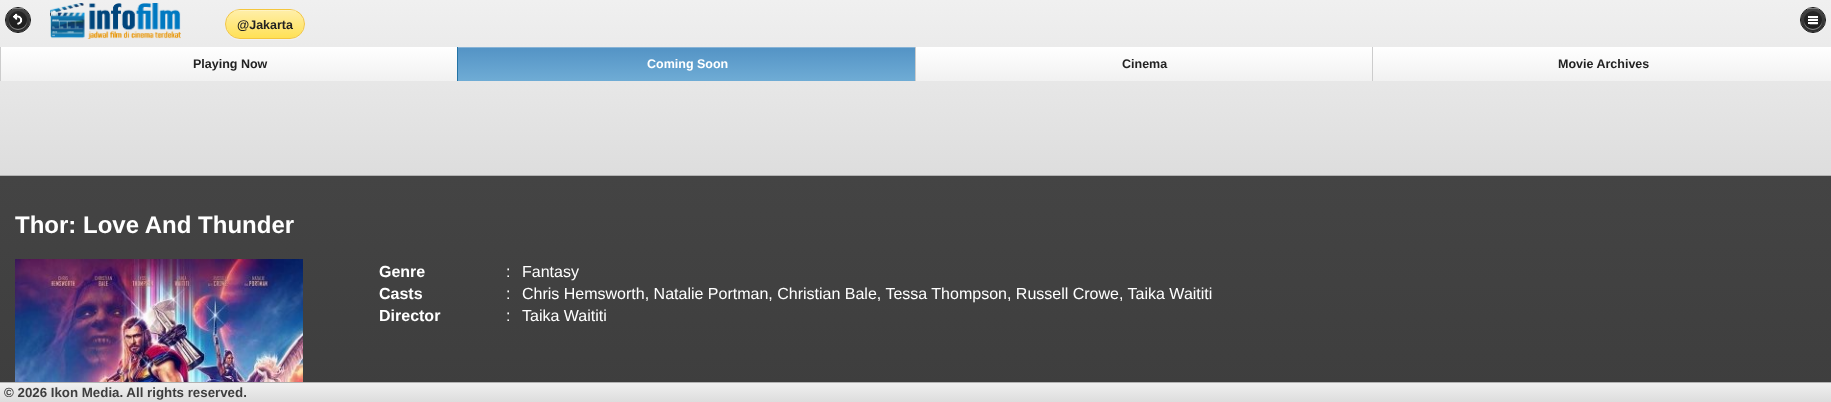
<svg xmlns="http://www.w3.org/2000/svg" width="1831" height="402">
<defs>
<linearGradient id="g1" gradientUnits="userSpaceOnUse" x1="916" y1="0" x2="916" y2="175"><stop offset="0" stop-color="#f0f0f0"/><stop offset="1" stop-color="#ddd"/></linearGradient>
<linearGradient id="g2" gradientUnits="userSpaceOnUse" x1="18" y1="8" x2="18" y2="32"><stop offset="0" stop-color="#444"/><stop offset="1" stop-color="#2d2d2d"/></linearGradient>
<linearGradient id="g3" gradientUnits="userSpaceOnUse" x1="265" y1="10" x2="265" y2="38"><stop offset="0" stop-color="#ffefaa"/><stop offset="1" stop-color="#ffe155"/></linearGradient>
<linearGradient id="g4" gradientUnits="userSpaceOnUse" x1="1813" y1="8" x2="1813" y2="32"><stop offset="0" stop-color="#444"/><stop offset="1" stop-color="#2d2d2d"/></linearGradient>
<linearGradient id="g5" gradientUnits="userSpaceOnUse" x1="230" y1="47" x2="230" y2="81"><stop offset="0" stop-color="#fff"/><stop offset="1" stop-color="#f1f1f1"/></linearGradient>
<linearGradient id="g6" gradientUnits="userSpaceOnUse" x1="687" y1="47" x2="687" y2="81"><stop offset="0" stop-color="#5393c5"/><stop offset="1" stop-color="#6facd5"/></linearGradient>
<linearGradient id="g7" gradientUnits="userSpaceOnUse" x1="1145" y1="47" x2="1145" y2="81"><stop offset="0" stop-color="#fff"/><stop offset="1" stop-color="#f1f1f1"/></linearGradient>
<linearGradient id="g8" gradientUnits="userSpaceOnUse" x1="1604" y1="47" x2="1604" y2="81"><stop offset="0" stop-color="#fff"/><stop offset="1" stop-color="#f1f1f1"/></linearGradient>
<linearGradient id="g9" gradientUnits="userSpaceOnUse" x1="915" y1="176" x2="916" y2="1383"><stop offset="0" stop-color="#444"/><stop offset="1" stop-color="#222"/></linearGradient>
<linearGradient id="g10" gradientUnits="userSpaceOnUse" x1="916" y1="383" x2="916" y2="402"><stop offset="0" stop-color="#f0f0f0"/><stop offset="1" stop-color="#ddd"/></linearGradient>
</defs>
<rect width="100%" height="100%" fill="#fff"/>
<rect width="1831" height="175" fill="url(#g1)"/>
<rect y="175" width="1831" height="1" fill="#b3b3b3"/>
<path d="M5 20.5c-.5 13 16.5 18.5 24 8c1.5-2.5 2-5.5 2-8c-.5 16.5-25.5 16.5-26 0z" fill="#f2f2f2"/>
<circle cx="18" cy="20" r="12" fill="url(#g2)"/>
<circle cx="18" cy="20" r="12.5" fill="none" stroke="#111"/>
<rect x="12" y="8" width="12" height="1" fill="#ffffff4d"/>
<path d="M9 20.5c-.5 12.5 18.5 12.5 18 0c-.5 11-17.5 11-18 0z" fill="#ffffff66"/>
<circle cx="18" cy="20" r="9" fill="#00000066"/>
<image x="13" y="13" width="10" height="12" href="media/1.png"/>
<image x="50" y="3" width="131" height="36" href="media/2.png"/>
<path d="M225 24c0 8 5 14 12 16h56c7-2 12-8 12-16c0 9-7 15-15 15h-50c-8 0-15-6-15-15z" fill="#f2f2f2"/>
<rect x="226" y="10" width="78" height="28" rx="14" fill="url(#g3)"/>
<rect x="225.5" y="9.5" width="79" height="29" rx="14.5" fill="none" stroke="#f4c63f"/>
<rect x="233" y="10" width="64" height="1" fill="#ffffff4d"/>
<text x="237" y="29" style="font-family:Liberation Sans;font-size:12.5px;font-weight:bold;fill:#222">@Jakarta</text>
<path d="M1800 20.5c-.5 13 16.5 18.5 24 8c1.5-2.5 2-5.5 2-8c-.5 16.5-25.5 16.5-26 0z" fill="#f2f2f2"/>
<circle cx="1813" cy="20" r="12" fill="url(#g4)"/>
<circle cx="1813" cy="20" r="12.5" fill="none" stroke="#111"/>
<rect x="1807" y="8" width="12" height="1" fill="#ffffff4d"/>
<path d="M1822 20.5c-.5 11-17.5 11-18 0c-.5 12.5 18.5 12.5 18 0z" fill="#ffffff66"/>
<circle cx="1813" cy="20" r="9" fill="#00000066"/>
<image x="1808" y="16" width="10" height="9" href="media/3.png"/>
<rect x="1" y="47" width="456" height="34" fill="url(#g5)"/>
<rect y="47" width="1" height="34" fill="#ccc"/>
<text x="193" y="68" style="font-family:Liberation Sans;font-size:12.5px;font-weight:bold;fill:#222">Playing Now</text>
<rect x="458" y="48" width="457" height="33" fill="url(#g6)"/>
<rect x="457" y="47" width="1" height="34" fill="#2373a5"/>
<rect x="458" y="47" width="458" height="1" fill="#87b3d6"/>
<text x="647" y="68" style="font-family:Liberation Sans;font-size:12.5px;font-weight:bold;fill:#fff">Coming Soon</text>
<rect x="916" y="47" width="456" height="34" fill="url(#g7)"/>
<rect x="915" y="47" width="1" height="34" fill="#ccc"/>
<text x="1122" y="68" style="font-family:Liberation Sans;font-size:12.5px;font-weight:bold;fill:#222">Cinema</text>
<rect x="1373" y="47" width="458" height="34" fill="url(#g8)"/>
<rect x="1372" y="47" width="1" height="34" fill="#ccc"/>
<text x="1558" y="68" style="font-family:Liberation Sans;font-size:12.5px;font-weight:bold;fill:#222">Movie Archives</text>
<rect y="176" width="1831" height="206" fill="url(#g9)"/>
<text x="15" y="233" style="font-family:Liberation Sans;font-size:24px;font-weight:bold;fill:#fff">Thor: Love And Thunder</text>
<image x="15" y="259" width="288" height="123" href="media/4.png"/>
<text x="379" y="277" style="font-family:Liberation Sans;font-size:16px;font-weight:bold;fill:#fff">Genre</text>
<text x="506" y="277" style="font-family:Liberation Sans;font-size:16px;fill:#fff">:</text>
<text x="522" y="277" style="font-family:Liberation Sans;font-size:16px;fill:#fff">Fantasy</text>
<text x="379" y="299" style="font-family:Liberation Sans;font-size:16px;font-weight:bold;fill:#fff">Casts</text>
<text x="506" y="299" style="font-family:Liberation Sans;font-size:16px;fill:#fff">:</text>
<text x="522" y="299" style="font-family:Liberation Sans;font-size:16px;fill:#fff">Chris Hemsworth, Natalie Portman, Christian Bale, Tessa Thompson, Russell Crowe, Taika Waititi</text>
<text x="379" y="321" style="font-family:Liberation Sans;font-size:16px;font-weight:bold;fill:#fff">Director</text>
<text x="506" y="321" style="font-family:Liberation Sans;font-size:16px;fill:#fff">:</text>
<text x="522" y="321" style="font-family:Liberation Sans;font-size:16px;fill:#fff">Taika Waititi</text>
<rect y="383" width="1831" height="19" fill="url(#g10)"/>
<rect y="382" width="1831" height="1" fill="#b3b3b3"/>
<text x="4" y="397" style="font-family:Liberation Sans;font-size:13.3px;font-weight:bold;fill:#3e3e3e">© 2026 Ikon Media. All rights reserved.</text>
</svg>
